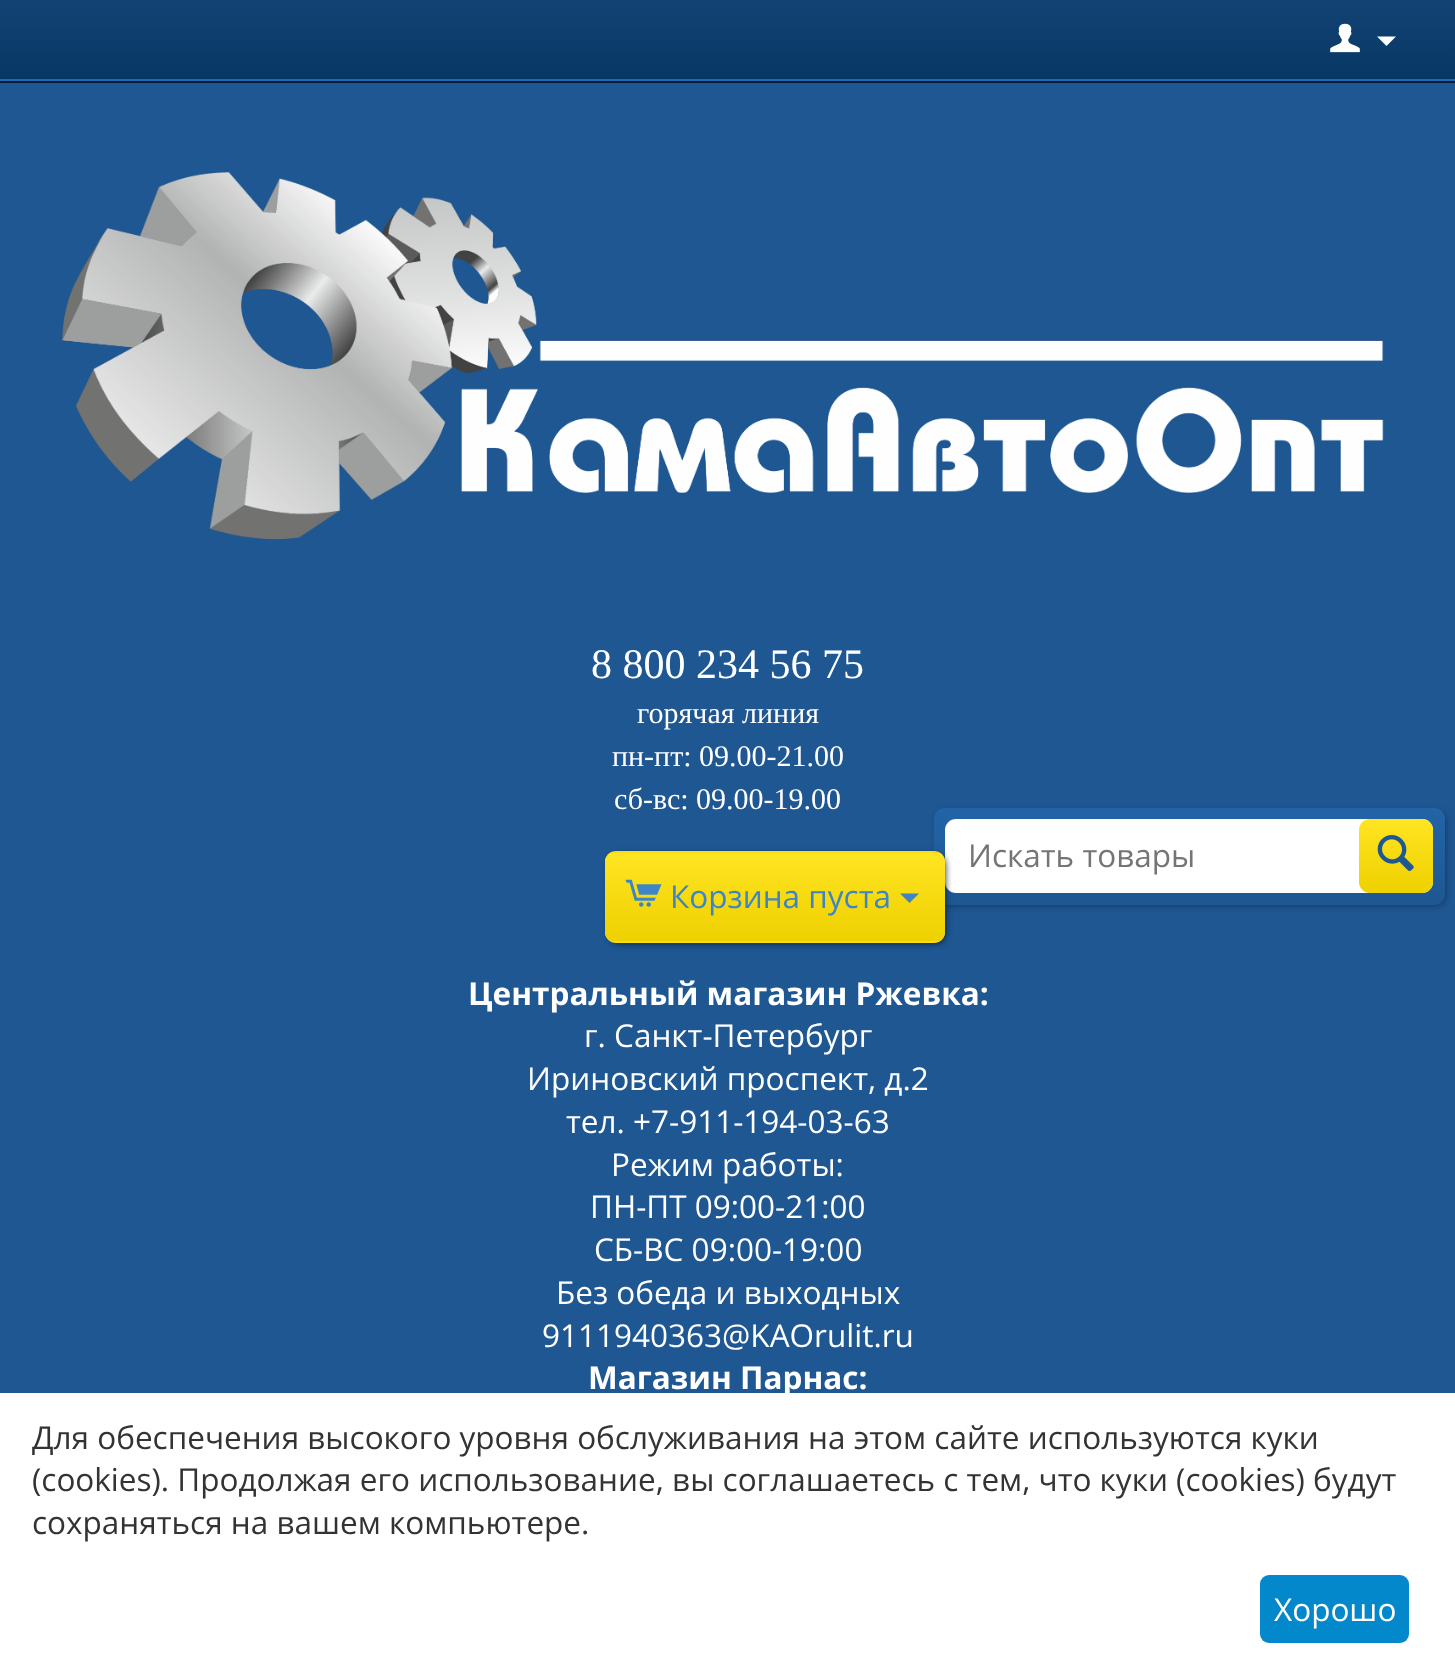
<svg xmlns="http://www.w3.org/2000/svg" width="1455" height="1673">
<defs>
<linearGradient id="g1" gradientUnits="userSpaceOnUse" x1="728" y1="0" x2="728" y2="79"><stop offset="0" stop-color="#124375"/><stop offset="1" stop-color="#073763"/></linearGradient>
<linearGradient id="g2" gradientUnits="userSpaceOnUse" x1="1189" y1="808" x2="1189" y2="905"><stop offset="0" stop-color="#2264a7"/><stop offset="1" stop-color="#1e5792"/></linearGradient>
<linearGradient id="g3" gradientUnits="userSpaceOnUse" x1="1396" y1="819" x2="1396" y2="893"><stop offset="0" stop-color="#ffe422"/><stop offset="1" stop-color="#eed100"/></linearGradient>
<clipPath id="clip1"><rect x="605" y="851" width="340" height="92" rx="11"/></clipPath>
<linearGradient id="g4" gradientUnits="userSpaceOnUse" x1="775" y1="853" x2="775" y2="941"><stop offset="0" stop-color="#ffe422"/><stop offset="1" stop-color="#eed100"/></linearGradient>
</defs>
<rect width="100%" height="100%" fill="#1e5792"/>
<rect x="-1" y="-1" width="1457" height="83" fill="none" stroke="#081d33" stroke-width="2"/>
<rect width="1455" height="79" fill="url(#g1)"/>
<rect y="79" width="1455" height="2" fill="#1c69b7"/>
<image x="1330" y="23" width="30" height="30" href="media/1.png"/>
<path d="M1386.5 46l-9.5-9.5h19z" fill="#fff"/>
<image x="61" y="171" width="1323" height="369" href="media/2.png"/>
<text x="591" y="678" style="font-family:Liberation Serif;font-size:42px;fill:#fff">8 800 234 56 75</text>
<text x="637" y="723" style="font-family:Liberation Serif;font-size:30px;fill:#fff">горячая линия</text>
<text x="612" y="766" style="font-family:Liberation Serif;font-size:30px;fill:#fff">пн-пт: 09.00-21.00</text>
<text x="614" y="809" style="font-family:Liberation Serif;font-size:30px;fill:#fff">сб-вс: 09.00-19.00</text>
<rect x="938" y="812" width="507" height="93" rx="9" fill="#113153" filter="blur(3.5px)"/>
<rect x="934" y="808" width="511" height="97" rx="11" fill="url(#g2)"/>
<rect x="945" y="819" width="488" height="74" rx="11" fill="#fff"/>
<text x="968" y="867" style="font-family:Open Sans;font-size:31.5px;fill:#757575">Искать товары</text>
<rect x="1359" y="819" width="74" height="74" rx="11" fill="url(#g3)"/>
<image x="1377" y="835" width="37" height="36" href="media/3.png"/>
<rect x="610" y="855" width="335" height="88" rx="9" fill="#081828" filter="blur(3.5px)"/>
<rect x="605" y="851" width="340" height="92" rx="11" fill="#f8dc14"/>
<g clip-path="url(#clip1)">
<rect x="605" y="853" width="340" height="88" fill="url(#g4)"/>
</g>
<image x="625" y="879" width="37" height="28" href="media/4.png"/>
<text x="670" y="908" style="font-family:Open Sans;font-size:31.5px;fill:#3d85c6">Корзина пуста</text>
<path d="M909.5 903l-9.5-9.5h19z" fill="#3d85c6"/>
<text x="468" y="1005" style="font-family:Open Sans;font-size:31.5px;font-weight:bold;fill:#fff">Центральный магазин Ржевка:</text>
<text x="584" y="1047" style="font-family:Open Sans;font-size:31.5px;fill:#fff">г. Санкт-Петербург</text>
<text x="527" y="1090" style="font-family:Open Sans;font-size:31.5px;fill:#fff">Ириновский проспект, д.2</text>
<text x="566" y="1133" style="font-family:Open Sans;font-size:31.5px;fill:#fff">тел. +7-911-194-03-63</text>
<text x="611" y="1176" style="font-family:Open Sans;font-size:31.5px;fill:#fff">Режим работы:</text>
<text x="590" y="1218" style="font-family:Open Sans;font-size:31.5px;fill:#fff">ПН-ПТ 09:00-21:00</text>
<text x="594" y="1261" style="font-family:Open Sans;font-size:31.5px;fill:#fff">СБ-ВС 09:00-19:00</text>
<text x="556" y="1304" style="font-family:Open Sans;font-size:31.5px;fill:#fff">Без обеда и выходных</text>
<text x="542" y="1347" style="font-family:Open Sans;font-size:31.5px;fill:#fff">9111940363@KAOrulit.ru</text>
<text x="588" y="1389" style="font-family:Open Sans;font-size:31.5px;font-weight:bold;fill:#fff">Магазин Парнас:</text>
<rect y="1393" width="1455" height="280" fill="#fff"/>
<text x="32" y="1449" style="font-family:Open Sans;font-size:31.5px;fill:#333">Для обеспечения высокого уровня обслуживания на этом сайте используются куки</text>
<text x="32" y="1491" style="font-family:Open Sans;font-size:31.5px;fill:#333">(cookies). Продолжая его использование, вы соглашаетесь с тем, что куки (cookies) будут</text>
<text x="32" y="1534" style="font-family:Open Sans;font-size:31.5px;fill:#333">сохраняться на вашем компьютере.</text>
<rect x="1260" y="1575" width="149" height="68" rx="9" fill="#0388cc"/>
<text x="1274" y="1621" style="font-family:Open Sans;font-size:31.5px;fill:#fff">Хорошо</text>
</svg>
